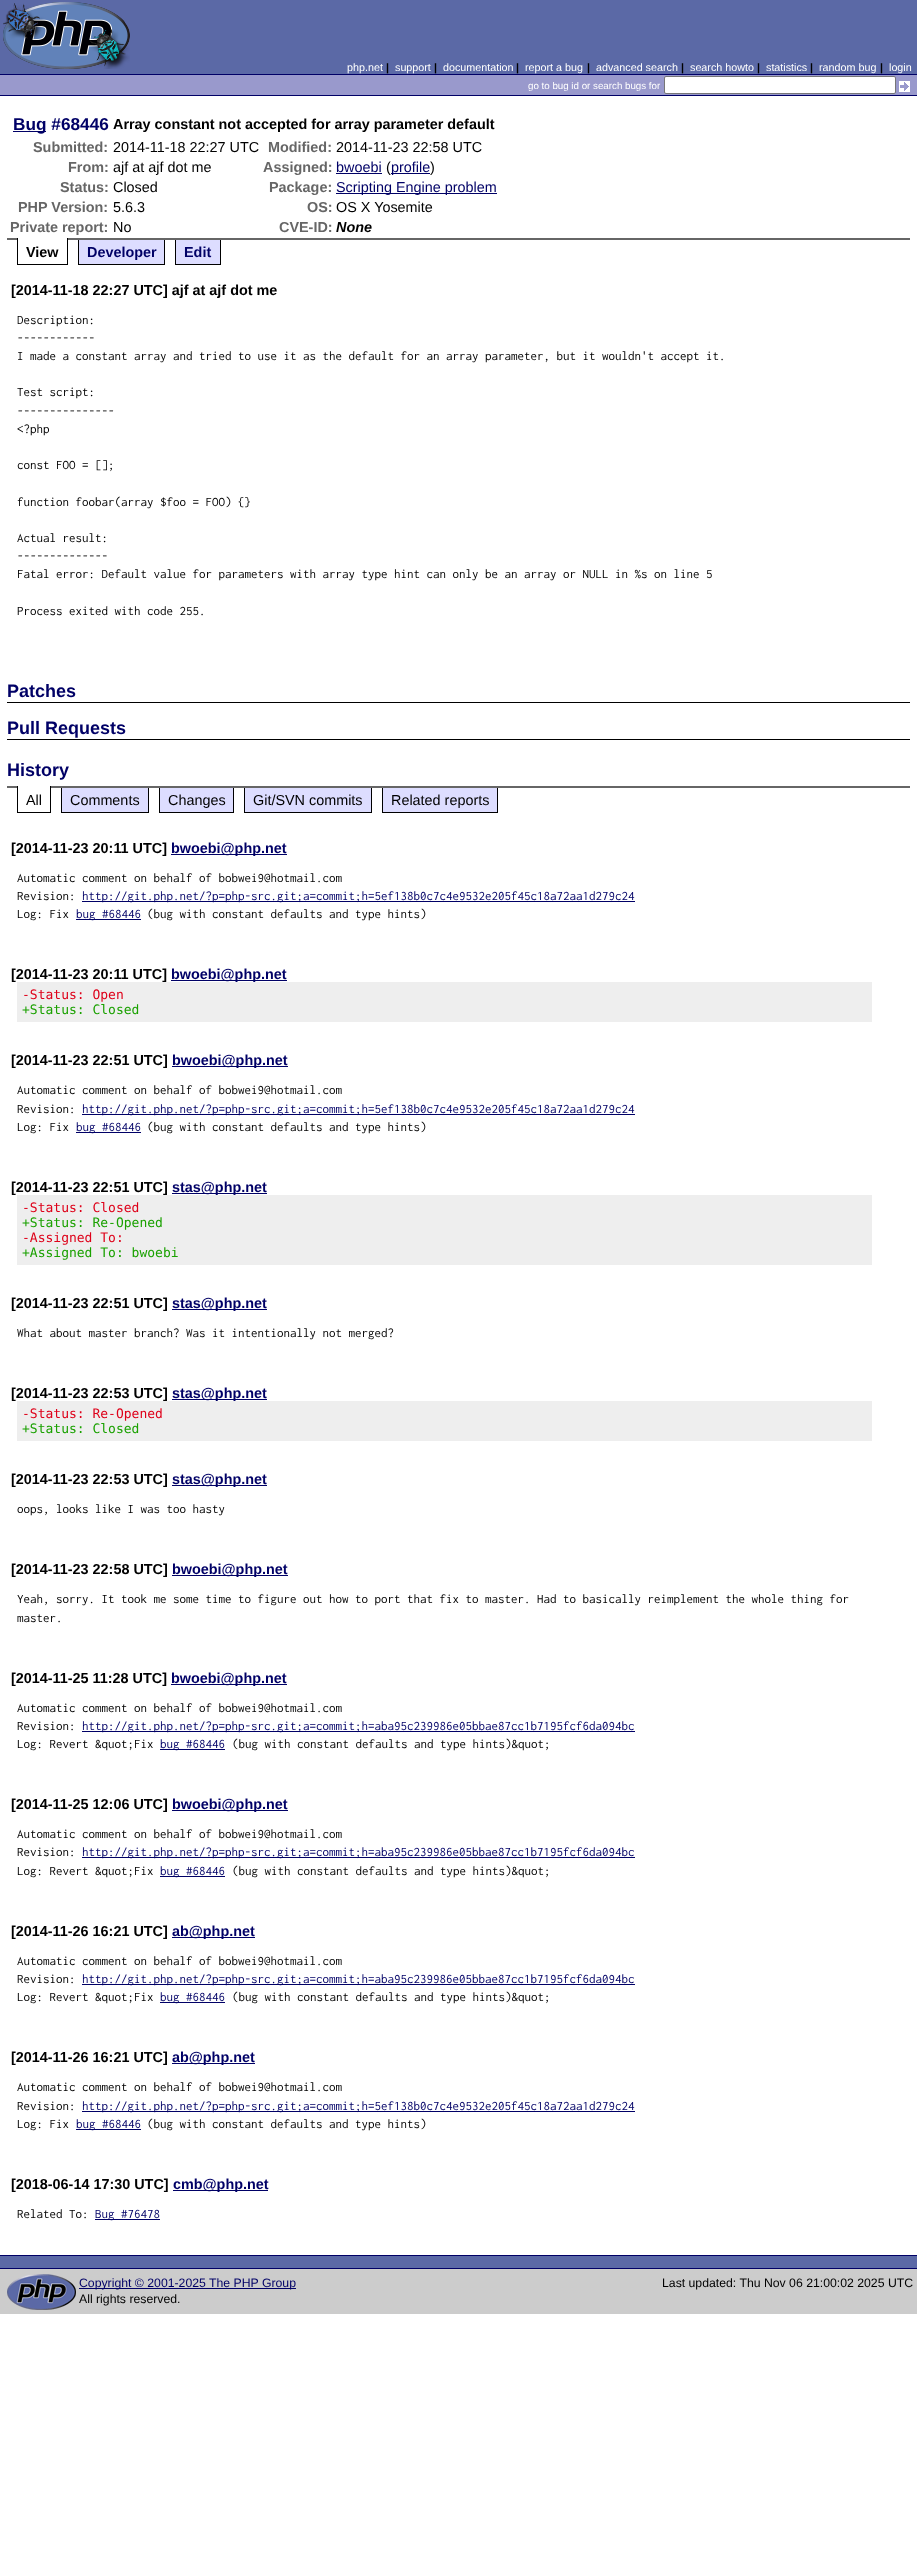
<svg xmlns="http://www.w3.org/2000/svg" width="917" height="2562">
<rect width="100%" height="100%" fill="#fff"/>
<rect width="917" height="74" fill="#5b69a6"/>
<image x="3" y="2" width="127" height="67" href="media/1.png"/>
<text x="347" y="71" style="font-family:Liberation Sans;font-size:10.75px;fill:#fff">php.net</text>
<text x="386" y="71" style="font-family:Liberation Sans;font-size:10.75px;font-weight:bold;fill:#000">|</text>
<text x="395" y="71" style="font-family:Liberation Sans;font-size:10.75px;fill:#fff">support</text>
<text x="434" y="71" style="font-family:Liberation Sans;font-size:10.75px;font-weight:bold;fill:#000">|</text>
<text x="443" y="71" style="font-family:Liberation Sans;font-size:10.75px;fill:#fff">documentation</text>
<text x="516" y="71" style="font-family:Liberation Sans;font-size:10.75px;font-weight:bold;fill:#000">|</text>
<text x="525" y="71" style="font-family:Liberation Sans;font-size:10.75px;fill:#fff">report a bug</text>
<text x="587" y="71" style="font-family:Liberation Sans;font-size:10.75px;font-weight:bold;fill:#000">|</text>
<text x="596" y="71" style="font-family:Liberation Sans;font-size:10.75px;fill:#fff">advanced search</text>
<text x="681" y="71" style="font-family:Liberation Sans;font-size:10.75px;font-weight:bold;fill:#000">|</text>
<text x="690" y="71" style="font-family:Liberation Sans;font-size:10.75px;fill:#fff">search howto</text>
<text x="757" y="71" style="font-family:Liberation Sans;font-size:10.75px;font-weight:bold;fill:#000">|</text>
<text x="766" y="71" style="font-family:Liberation Sans;font-size:10.75px;fill:#fff">statistics</text>
<text x="810" y="71" style="font-family:Liberation Sans;font-size:10.75px;font-weight:bold;fill:#000">|</text>
<text x="819" y="71" style="font-family:Liberation Sans;font-size:10.75px;fill:#fff">random bug</text>
<text x="880" y="71" style="font-family:Liberation Sans;font-size:10.75px;font-weight:bold;fill:#000">|</text>
<text x="889" y="71" style="font-family:Liberation Sans;font-size:10.75px;fill:#fff">login</text>
<rect y="75" width="917" height="20" fill="#99c"/>
<rect y="74" width="917" height="1" fill="#006"/>
<rect y="95" width="917" height="1" fill="#006"/>
<text x="528" y="89" style="font-family:Liberation Sans;font-size:9.75px;fill:#fff">go to bug id or search bugs for</text>
<rect x="664.5" y="76.5" width="231" height="17" rx="1.5" fill="#fff" stroke="#767676"/>
<image x="899" y="81" width="11" height="11" href="media/2.png"/>
<rect x="7" y="238" width="903" height="2" fill="#666"/>
<rect x="13" y="131" width="33" height="1" fill="#006"/>
<text x="13" y="130" style="font-family:Liberation Sans;font-size:17.25px;font-weight:bold;fill:#006">Bug #68446</text>
<text x="113" y="129" style="font-family:Liberation Sans;font-size:14.4px;font-weight:bold;fill:#000">Array constant not accepted for array parameter default</text>
<text x="33" y="152" style="font-family:Liberation Sans;font-size:14.4px;font-weight:bold;fill:#666">Submitted:</text>
<text x="113" y="152" style="font-family:Liberation Sans;font-size:14.4px;fill:#000">2014-11-18 22:27 UTC</text>
<text x="268" y="152" style="font-family:Liberation Sans;font-size:14.4px;font-weight:bold;fill:#666">Modified:</text>
<text x="336" y="152" style="font-family:Liberation Sans;font-size:14.4px;fill:#000">2014-11-23 22:58 UTC</text>
<text x="68" y="172" style="font-family:Liberation Sans;font-size:14.4px;font-weight:bold;fill:#666">From:</text>
<text x="113" y="172" style="font-family:Liberation Sans;font-size:14.4px;fill:#000">ajf at ajf dot me</text>
<text x="263" y="172" style="font-family:Liberation Sans;font-size:14.4px;font-weight:bold;fill:#666">Assigned:</text>
<text x="336" y="172" style="font-family:Liberation Sans;font-size:14.4px;fill:#006">bwoebi</text>
<rect x="336" y="173" width="46" height="1" fill="#006"/>
<text x="386" y="172" style="font-family:Liberation Sans;font-size:14.4px;fill:#000">(</text>
<rect x="391" y="173" width="39" height="1" fill="#006"/>
<text x="391" y="172" style="font-family:Liberation Sans;font-size:14.4px;fill:#006">profile</text>
<text x="430" y="172" style="font-family:Liberation Sans;font-size:14.4px;fill:#000">)</text>
<text x="60" y="192" style="font-family:Liberation Sans;font-size:14.4px;font-weight:bold;fill:#666">Status:</text>
<text x="113" y="192" style="font-family:Liberation Sans;font-size:14.4px;fill:#000">Closed</text>
<text x="269" y="192" style="font-family:Liberation Sans;font-size:14.4px;font-weight:bold;fill:#666">Package:</text>
<rect x="336" y="193" width="161" height="1" fill="#006"/>
<text x="336" y="192" style="font-family:Liberation Sans;font-size:14.4px;fill:#006">Scripting Engine problem</text>
<text x="18" y="212" style="font-family:Liberation Sans;font-size:14.4px;font-weight:bold;fill:#666">PHP Version:</text>
<text x="113" y="212" style="font-family:Liberation Sans;font-size:14.4px;fill:#000">5.6.3</text>
<text x="307" y="212" style="font-family:Liberation Sans;font-size:14.4px;font-weight:bold;fill:#666">OS:</text>
<text x="336" y="212" style="font-family:Liberation Sans;font-size:14.4px;fill:#000">OS X Yosemite</text>
<text x="10" y="232" style="font-family:Liberation Sans;font-size:14.4px;font-weight:bold;fill:#666">Private report:</text>
<text x="113" y="232" style="font-family:Liberation Sans;font-size:14.4px;fill:#000">No</text>
<text x="279" y="232" style="font-family:Liberation Sans;font-size:14.4px;font-weight:bold;fill:#666">CVE-ID:</text>
<text x="336" y="232" style="font-family:Liberation Sans;font-size:14.4px;font-weight:bold;font-style:italic;fill:#000">None</text>
<rect x="18" y="238" width="49" height="2" fill="#fff"/>
<rect x="67" y="238" width="1" height="27" fill="#000"/>
<rect x="17" y="264" width="51" height="1" fill="#000"/>
<rect x="17" y="238" width="1" height="27" fill="#000"/>
<text x="26" y="257" style="font-family:Liberation Sans;font-size:14.4px;font-weight:bold;fill:#000">View</text>
<rect x="79" y="240" width="85" height="24" fill="#ddf"/>
<rect x="164" y="240" width="1" height="25" fill="#000"/>
<rect x="78" y="264" width="87" height="1" fill="#000"/>
<rect x="78" y="240" width="1" height="25" fill="#000"/>
<text x="87" y="257" style="font-family:Liberation Sans;font-size:14.4px;font-weight:bold;fill:#006">Developer</text>
<rect x="176" y="240" width="44" height="24" fill="#ddf"/>
<rect x="220" y="240" width="1" height="25" fill="#000"/>
<rect x="175" y="264" width="46" height="1" fill="#000"/>
<rect x="175" y="240" width="1" height="25" fill="#000"/>
<text x="184" y="257" style="font-family:Liberation Sans;font-size:14.4px;font-weight:bold;fill:#006">Edit</text>
<text x="11" y="295" style="font-family:Liberation Sans;font-size:14.4px;font-weight:bold;fill:#000">[2014-11-18 22:27 UTC] ajf at ajf dot me</text>
<text x="17" y="324" style="font-family:Inconsolata;font-size:13px;fill:#000">Description:</text>
<text x="17" y="342" style="font-family:Inconsolata;font-size:13px;fill:#000">------------</text>
<text x="17" y="360" style="font-family:Inconsolata;font-size:13px;fill:#000">I made a constant array and tried to use it as the default for an array parameter, but it wouldn't accept it.</text>
<text x="17" y="396" style="font-family:Inconsolata;font-size:13px;fill:#000">Test script:</text>
<text x="17" y="415" style="font-family:Inconsolata;font-size:13px;fill:#000">---------------</text>
<text x="17" y="433" style="font-family:Inconsolata;font-size:13px;fill:#000">&lt;?php</text>
<text x="17" y="469" style="font-family:Inconsolata;font-size:13px;fill:#000">const FOO = [];</text>
<text x="17" y="506" style="font-family:Inconsolata;font-size:13px;fill:#000">function foobar(array $foo = FOO) {}</text>
<text x="17" y="542" style="font-family:Inconsolata;font-size:13px;fill:#000">Actual result:</text>
<text x="17" y="560" style="font-family:Inconsolata;font-size:13px;fill:#000">--------------</text>
<text x="17" y="578" style="font-family:Inconsolata;font-size:13px;fill:#000">Fatal error: Default value for parameters with array type hint can only be an array or NULL in %s on line 5</text>
<text x="17" y="615" style="font-family:Inconsolata;font-size:13px;fill:#000">Process exited with code 255.</text>
<rect x="7" y="702" width="903" height="1" fill="#000"/>
<text x="7" y="697" style="font-family:Liberation Sans;font-size:18px;font-weight:bold;fill:#006">Patches</text>
<rect x="7" y="739" width="903" height="1" fill="#000"/>
<text x="7" y="734" style="font-family:Liberation Sans;font-size:18px;font-weight:bold;fill:#006">Pull Requests</text>
<rect x="7" y="786" width="903" height="2" fill="#666"/>
<text x="7" y="776" style="font-family:Liberation Sans;font-size:18px;font-weight:bold;fill:#006">History</text>
<rect x="18" y="786" width="32" height="2" fill="#fff"/>
<rect x="50" y="786" width="1" height="27" fill="#000"/>
<rect x="17" y="812" width="34" height="1" fill="#000"/>
<rect x="17" y="786" width="1" height="27" fill="#000"/>
<text x="26" y="805" style="font-family:Liberation Sans;font-size:14.4px;fill:#000">All</text>
<rect x="62" y="788" width="86" height="24" fill="#ddf"/>
<rect x="148" y="788" width="1" height="25" fill="#000"/>
<rect x="61" y="812" width="88" height="1" fill="#000"/>
<rect x="61" y="788" width="1" height="25" fill="#000"/>
<text x="70" y="805" style="font-family:Liberation Sans;font-size:14.4px;fill:#000">Comments</text>
<rect x="160" y="788" width="73" height="24" fill="#ddf"/>
<rect x="233" y="788" width="1" height="25" fill="#000"/>
<rect x="159" y="812" width="75" height="1" fill="#000"/>
<rect x="159" y="788" width="1" height="25" fill="#000"/>
<text x="168" y="805" style="font-family:Liberation Sans;font-size:14.4px;fill:#000">Changes</text>
<rect x="245" y="788" width="126" height="24" fill="#ddf"/>
<rect x="371" y="788" width="1" height="25" fill="#000"/>
<rect x="244" y="812" width="128" height="1" fill="#000"/>
<rect x="244" y="788" width="1" height="25" fill="#000"/>
<text x="253" y="805" style="font-family:Liberation Sans;font-size:14.4px;fill:#000">Git/SVN commits</text>
<rect x="383" y="788" width="114" height="24" fill="#ddf"/>
<rect x="497" y="788" width="1" height="25" fill="#000"/>
<rect x="382" y="812" width="116" height="1" fill="#000"/>
<rect x="382" y="788" width="1" height="25" fill="#000"/>
<text x="391" y="805" style="font-family:Liberation Sans;font-size:14.4px;fill:#000">Related reports</text>
<text x="11" y="853" style="font-family:Liberation Sans;font-size:14.4px;font-weight:bold;fill:#000">[2014-11-23 20:11 UTC]</text>
<rect x="171" y="854" width="116" height="1" fill="#006"/>
<text x="171" y="853" style="font-family:Liberation Sans;font-size:14.4px;font-weight:bold;fill:#006">bwoebi@php.net</text>
<text x="17" y="882" style="font-family:Inconsolata;font-size:13px;fill:#000">Automatic comment on behalf of bobwei9@hotmail.com</text>
<text x="17" y="900" style="font-family:Inconsolata;font-size:13px;fill:#000">Revision:</text>
<rect x="82" y="901" width="553" height="1" fill="#006"/>
<text x="82" y="900" style="font-family:Inconsolata;font-size:13px;fill:#006">http://git.php.net/?p=php-src.git;a=commit;h=5ef138b0c7c4e9532e205f45c18a72aa1d279c24</text>
<text x="17" y="918" style="font-family:Inconsolata;font-size:13px;fill:#000">Log: Fix</text>
<rect x="76" y="919" width="65" height="1" fill="#006"/>
<text x="76" y="918" style="font-family:Inconsolata;font-size:13px;fill:#006">bug #68446</text>
<text x="147" y="918" style="font-family:Inconsolata;font-size:13px;fill:#000">(bug with constant defaults and type hints)</text>
<text x="11" y="979" style="font-family:Liberation Sans;font-size:14.4px;font-weight:bold;fill:#000">[2014-11-23 20:11 UTC]</text>
<rect x="171" y="980" width="116" height="1" fill="#006"/>
<text x="171" y="979" style="font-family:Liberation Sans;font-size:14.4px;font-weight:bold;fill:#006">bwoebi@php.net</text>
<rect x="17" y="982" width="855" height="40" fill="#eee"/>
<text x="22" y="999" style="font-family:DejaVu Sans Mono;font-size:13px;fill:#de0019">-Status: Open</text>
<text x="22" y="1014" style="font-family:DejaVu Sans Mono;font-size:13px;fill:#1aa100">+Status: Closed</text>
<text x="11" y="1065" style="font-family:Liberation Sans;font-size:14.4px;font-weight:bold;fill:#000">[2014-11-23 22:51 UTC]</text>
<rect x="172" y="1066" width="116" height="1" fill="#006"/>
<text x="172" y="1065" style="font-family:Liberation Sans;font-size:14.4px;font-weight:bold;fill:#006">bwoebi@php.net</text>
<text x="17" y="1094" style="font-family:Inconsolata;font-size:13px;fill:#000">Automatic comment on behalf of bobwei9@hotmail.com</text>
<text x="17" y="1113" style="font-family:Inconsolata;font-size:13px;fill:#000">Revision:</text>
<rect x="82" y="1114" width="553" height="1" fill="#006"/>
<text x="82" y="1113" style="font-family:Inconsolata;font-size:13px;fill:#006">http://git.php.net/?p=php-src.git;a=commit;h=5ef138b0c7c4e9532e205f45c18a72aa1d279c24</text>
<text x="17" y="1131" style="font-family:Inconsolata;font-size:13px;fill:#000">Log: Fix</text>
<rect x="76" y="1132" width="65" height="1" fill="#006"/>
<text x="76" y="1131" style="font-family:Inconsolata;font-size:13px;fill:#006">bug #68446</text>
<text x="147" y="1131" style="font-family:Inconsolata;font-size:13px;fill:#000">(bug with constant defaults and type hints)</text>
<text x="11" y="1192" style="font-family:Liberation Sans;font-size:14.4px;font-weight:bold;fill:#000">[2014-11-23 22:51 UTC]</text>
<rect x="172" y="1193" width="95" height="1" fill="#006"/>
<text x="172" y="1192" style="font-family:Liberation Sans;font-size:14.4px;font-weight:bold;fill:#006">stas@php.net</text>
<rect x="17" y="1195" width="855" height="70" fill="#eee"/>
<text x="22" y="1212" style="font-family:DejaVu Sans Mono;font-size:13px;fill:#de0019">-Status: Closed</text>
<text x="22" y="1227" style="font-family:DejaVu Sans Mono;font-size:13px;fill:#1aa100">+Status: Re-Opened</text>
<text x="22" y="1242" style="font-family:DejaVu Sans Mono;font-size:13px;fill:#de0019">-Assigned To:</text>
<text x="22" y="1257" style="font-family:DejaVu Sans Mono;font-size:13px;fill:#1aa100">+Assigned To: bwoebi</text>
<text x="11" y="1308" style="font-family:Liberation Sans;font-size:14.4px;font-weight:bold;fill:#000">[2014-11-23 22:51 UTC]</text>
<rect x="172" y="1309" width="95" height="1" fill="#006"/>
<text x="172" y="1308" style="font-family:Liberation Sans;font-size:14.4px;font-weight:bold;fill:#006">stas@php.net</text>
<text x="17" y="1337" style="font-family:Inconsolata;font-size:13px;fill:#000">What about master branch? Was it intentionally not merged?</text>
<text x="11" y="1398" style="font-family:Liberation Sans;font-size:14.4px;font-weight:bold;fill:#000">[2014-11-23 22:53 UTC]</text>
<rect x="172" y="1399" width="95" height="1" fill="#006"/>
<text x="172" y="1398" style="font-family:Liberation Sans;font-size:14.4px;font-weight:bold;fill:#006">stas@php.net</text>
<rect x="17" y="1401" width="855" height="40" fill="#eee"/>
<text x="22" y="1418" style="font-family:DejaVu Sans Mono;font-size:13px;fill:#de0019">-Status: Re-Opened</text>
<text x="22" y="1433" style="font-family:DejaVu Sans Mono;font-size:13px;fill:#1aa100">+Status: Closed</text>
<text x="11" y="1484" style="font-family:Liberation Sans;font-size:14.4px;font-weight:bold;fill:#000">[2014-11-23 22:53 UTC]</text>
<rect x="172" y="1485" width="95" height="1" fill="#006"/>
<text x="172" y="1484" style="font-family:Liberation Sans;font-size:14.4px;font-weight:bold;fill:#006">stas@php.net</text>
<text x="17" y="1513" style="font-family:Inconsolata;font-size:13px;fill:#000">oops, looks like I was too hasty</text>
<text x="11" y="1574" style="font-family:Liberation Sans;font-size:14.4px;font-weight:bold;fill:#000">[2014-11-23 22:58 UTC]</text>
<rect x="172" y="1575" width="116" height="1" fill="#006"/>
<text x="172" y="1574" style="font-family:Liberation Sans;font-size:14.4px;font-weight:bold;fill:#006">bwoebi@php.net</text>
<text x="17" y="1603" style="font-family:Inconsolata;font-size:13px;fill:#000">Yeah, sorry. It took me some time to figure out how to port that fix to master. Had to basically reimplement the whole thing for</text>
<text x="17" y="1622" style="font-family:Inconsolata;font-size:13px;fill:#000">master.</text>
<text x="11" y="1683" style="font-family:Liberation Sans;font-size:14.4px;font-weight:bold;fill:#000">[2014-11-25 11:28 UTC]</text>
<rect x="171" y="1684" width="116" height="1" fill="#006"/>
<text x="171" y="1683" style="font-family:Liberation Sans;font-size:14.4px;font-weight:bold;fill:#006">bwoebi@php.net</text>
<text x="17" y="1712" style="font-family:Inconsolata;font-size:13px;fill:#000">Automatic comment on behalf of bobwei9@hotmail.com</text>
<text x="17" y="1730" style="font-family:Inconsolata;font-size:13px;fill:#000">Revision:</text>
<rect x="82" y="1731" width="553" height="1" fill="#006"/>
<text x="82" y="1730" style="font-family:Inconsolata;font-size:13px;fill:#006">http://git.php.net/?p=php-src.git;a=commit;h=aba95c239986e05bbae87cc1b7195fcf6da094bc</text>
<text x="17" y="1748" style="font-family:Inconsolata;font-size:13px;fill:#000">Log: Revert &amp;quot;Fix</text>
<rect x="160" y="1749" width="65" height="1" fill="#006"/>
<text x="160" y="1748" style="font-family:Inconsolata;font-size:13px;fill:#006">bug #68446</text>
<text x="232" y="1748" style="font-family:Inconsolata;font-size:13px;fill:#000">(bug with constant defaults and type hints)&amp;quot;</text>
<text x="11" y="1809" style="font-family:Liberation Sans;font-size:14.4px;font-weight:bold;fill:#000">[2014-11-25 12:06 UTC]</text>
<rect x="172" y="1810" width="116" height="1" fill="#006"/>
<text x="172" y="1809" style="font-family:Liberation Sans;font-size:14.4px;font-weight:bold;fill:#006">bwoebi@php.net</text>
<text x="17" y="1838" style="font-family:Inconsolata;font-size:13px;fill:#000">Automatic comment on behalf of bobwei9@hotmail.com</text>
<text x="17" y="1856" style="font-family:Inconsolata;font-size:13px;fill:#000">Revision:</text>
<rect x="82" y="1857" width="553" height="1" fill="#006"/>
<text x="82" y="1856" style="font-family:Inconsolata;font-size:13px;fill:#006">http://git.php.net/?p=php-src.git;a=commit;h=aba95c239986e05bbae87cc1b7195fcf6da094bc</text>
<text x="17" y="1875" style="font-family:Inconsolata;font-size:13px;fill:#000">Log: Revert &amp;quot;Fix</text>
<rect x="160" y="1876" width="65" height="1" fill="#006"/>
<text x="160" y="1875" style="font-family:Inconsolata;font-size:13px;fill:#006">bug #68446</text>
<text x="232" y="1875" style="font-family:Inconsolata;font-size:13px;fill:#000">(bug with constant defaults and type hints)&amp;quot;</text>
<text x="11" y="1936" style="font-family:Liberation Sans;font-size:14.4px;font-weight:bold;fill:#000">[2014-11-26 16:21 UTC]</text>
<rect x="172" y="1937" width="83" height="1" fill="#006"/>
<text x="172" y="1936" style="font-family:Liberation Sans;font-size:14.4px;font-weight:bold;fill:#006">ab@php.net</text>
<text x="17" y="1965" style="font-family:Inconsolata;font-size:13px;fill:#000">Automatic comment on behalf of bobwei9@hotmail.com</text>
<text x="17" y="1983" style="font-family:Inconsolata;font-size:13px;fill:#000">Revision:</text>
<rect x="82" y="1984" width="553" height="1" fill="#006"/>
<text x="82" y="1983" style="font-family:Inconsolata;font-size:13px;fill:#006">http://git.php.net/?p=php-src.git;a=commit;h=aba95c239986e05bbae87cc1b7195fcf6da094bc</text>
<text x="17" y="2001" style="font-family:Inconsolata;font-size:13px;fill:#000">Log: Revert &amp;quot;Fix</text>
<rect x="160" y="2002" width="65" height="1" fill="#006"/>
<text x="160" y="2001" style="font-family:Inconsolata;font-size:13px;fill:#006">bug #68446</text>
<text x="232" y="2001" style="font-family:Inconsolata;font-size:13px;fill:#000">(bug with constant defaults and type hints)&amp;quot;</text>
<text x="11" y="2062" style="font-family:Liberation Sans;font-size:14.4px;font-weight:bold;fill:#000">[2014-11-26 16:21 UTC]</text>
<rect x="172" y="2063" width="83" height="1" fill="#006"/>
<text x="172" y="2062" style="font-family:Liberation Sans;font-size:14.4px;font-weight:bold;fill:#006">ab@php.net</text>
<text x="17" y="2091" style="font-family:Inconsolata;font-size:13px;fill:#000">Automatic comment on behalf of bobwei9@hotmail.com</text>
<text x="17" y="2110" style="font-family:Inconsolata;font-size:13px;fill:#000">Revision:</text>
<rect x="82" y="2111" width="553" height="1" fill="#006"/>
<text x="82" y="2110" style="font-family:Inconsolata;font-size:13px;fill:#006">http://git.php.net/?p=php-src.git;a=commit;h=5ef138b0c7c4e9532e205f45c18a72aa1d279c24</text>
<text x="17" y="2128" style="font-family:Inconsolata;font-size:13px;fill:#000">Log: Fix</text>
<rect x="76" y="2129" width="65" height="1" fill="#006"/>
<text x="76" y="2128" style="font-family:Inconsolata;font-size:13px;fill:#006">bug #68446</text>
<text x="147" y="2128" style="font-family:Inconsolata;font-size:13px;fill:#000">(bug with constant defaults and type hints)</text>
<text x="11" y="2189" style="font-family:Liberation Sans;font-size:14.4px;font-weight:bold;fill:#000">[2018-06-14 17:30 UTC]</text>
<rect x="173" y="2190" width="95" height="1" fill="#006"/>
<text x="173" y="2189" style="font-family:Liberation Sans;font-size:14.4px;font-weight:bold;fill:#006">cmb@php.net</text>
<text x="17" y="2218" style="font-family:Inconsolata;font-size:13px;fill:#000">Related To:</text>
<rect x="95" y="2219" width="65" height="1" fill="#006"/>
<text x="95" y="2218" style="font-family:Inconsolata;font-size:13px;fill:#006">Bug #76478</text>
<rect y="2256" width="917" height="12" fill="#5b69a6"/>
<rect y="2255" width="917" height="1" fill="#006"/>
<rect y="2268" width="917" height="1" fill="#006"/>
<rect y="2269" width="917" height="45" fill="#ccc"/>
<image x="7" y="2274" width="69" height="36" href="media/3.png"/>
<rect x="79" y="2288" width="217" height="1" fill="#006"/>
<text x="79" y="2287" style="font-family:Liberation Sans;font-size:12.25px;fill:#006">Copyright © 2001-2025 The PHP Group</text>
<text x="79" y="2303" style="font-family:Liberation Sans;font-size:12.25px;fill:#000">All rights reserved.</text>
<text x="662" y="2287" style="font-family:Liberation Sans;font-size:12.25px;fill:#000">Last updated: Thu Nov 06 21:00:02 2025 UTC</text>
</svg>
